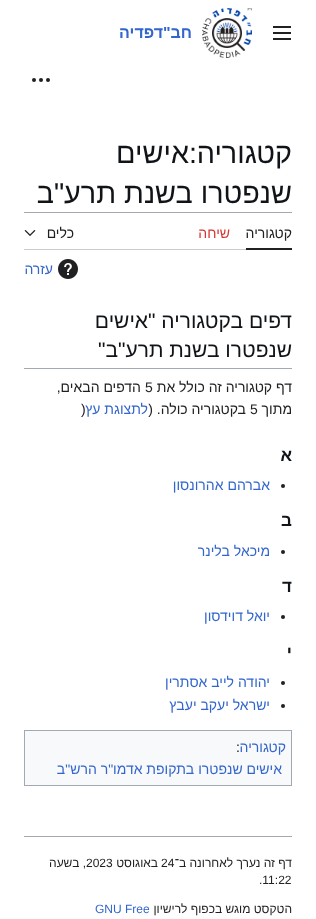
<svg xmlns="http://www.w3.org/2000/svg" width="316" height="919">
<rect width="100%" height="100%" fill="#fff"/>
<image x="273" y="26" width="18" height="14" href="media/1.png"/>
<image x="202" y="8" width="50" height="50" href="media/2.png"/>
<text x="192" y="38" style="font-family:Liberation Sans;font-size:16px;font-weight:bold;direction:rtl;fill:#36c">חב"דפדיה</text>
<image x="32" y="78" width="18" height="4" href="media/3.png"/>
<text x="292" y="163" style="font-family:Liberation Sans;font-size:28.75px;direction:rtl;fill:#101418">קטגוריה</text>
<text x="189" y="163" style="font-family:Liberation Sans;font-size:28.75px;fill:#101418">:</text>
<text x="189" y="163" style="font-family:Liberation Sans;font-size:28.75px;direction:rtl;fill:#101418">אישים</text>
<text x="292" y="203" style="font-family:Liberation Sans;font-size:28.75px;direction:rtl;fill:#101418">שנפטרו בשנת תרע"ב</text>
<rect x="24" y="212" width="268" height="1" fill="#a2a9b1"/>
<rect x="24" y="249" width="222" height="1" fill="#c8ccd1"/>
<rect x="246" y="248" width="46" height="2" fill="#202122"/>
<text x="292" y="238" style="font-family:Liberation Sans;font-size:14px;direction:rtl;fill:#202122">קטגוריה</text>
<text x="230" y="238" style="font-family:Liberation Sans;font-size:14px;direction:rtl;fill:#d73333">שיחה</text>
<text x="74" y="238" style="font-family:Liberation Sans;font-size:14px;direction:rtl;fill:#202122">כלים</text>
<image x="24" y="230" width="12" height="6" href="media/4.png"/>
<image x="58" y="259" width="20" height="20" href="media/5.png"/>
<text x="53" y="274" style="font-family:Liberation Sans;font-size:14px;direction:rtl;fill:#36c">עזרה</text>
<rect x="24" y="368" width="268" height="1" fill="#a2a9b1"/>
<text x="292" y="328" style="font-family:Liberation Sans;font-size:21px;direction:rtl;fill:#101418">דפים בקטגוריה "אישים</text>
<text x="292" y="357" style="font-family:Liberation Sans;font-size:21px;direction:rtl;fill:#101418">שנפטרו בשנת תרע"ב"</text>
<text x="292" y="392" style="font-family:Liberation Sans;font-size:14px;direction:rtl;fill:#202122">דף קטגוריה זה כולל את</text>
<text x="145" y="392" style="font-family:Liberation Sans;font-size:14px;fill:#202122">5</text>
<text x="141" y="392" style="font-family:Liberation Sans;font-size:14px;direction:rtl;fill:#202122">הדפים הבאים,</text>
<text x="292" y="414" style="font-family:Liberation Sans;font-size:14px;direction:rtl;fill:#202122">מתוך</text>
<text x="250" y="414" style="font-family:Liberation Sans;font-size:14px;fill:#202122">5</text>
<text x="246" y="414" style="font-family:Liberation Sans;font-size:14px;direction:rtl;fill:#202122">בקטגוריה כולה. (</text>
<text x="148" y="414" style="font-family:Liberation Sans;font-size:14px;direction:rtl;fill:#36c">לתצוגת עץ</text>
<text x="81" y="414" style="font-family:Liberation Sans;font-size:14px;fill:#202122">)</text>
<text x="292" y="461" style="font-family:Liberation Sans;font-size:17px;font-weight:bold;direction:rtl;fill:#101418">א</text>
<circle cx="283" cy="486" r="2" fill="#202122"/>
<text x="270" y="490" style="font-family:Liberation Sans;font-size:14px;direction:rtl;fill:#36c">אברהם אהרונסון</text>
<text x="292" y="526" style="font-family:Liberation Sans;font-size:17px;font-weight:bold;direction:rtl;fill:#101418">ב</text>
<circle cx="283" cy="552" r="2" fill="#202122"/>
<text x="270" y="556" style="font-family:Liberation Sans;font-size:14px;direction:rtl;fill:#36c">מיכאל בלינר</text>
<text x="292" y="592" style="font-family:Liberation Sans;font-size:17px;font-weight:bold;direction:rtl;fill:#101418">ד</text>
<circle cx="283" cy="617" r="2" fill="#202122"/>
<text x="270" y="621" style="font-family:Liberation Sans;font-size:14px;direction:rtl;fill:#36c">יואל דוידסון</text>
<text x="292" y="658" style="font-family:Liberation Sans;font-size:17px;font-weight:bold;direction:rtl;fill:#101418">י</text>
<circle cx="283" cy="683" r="2" fill="#202122"/>
<text x="270" y="687" style="font-family:Liberation Sans;font-size:14px;direction:rtl;fill:#36c">יהודה לייב אסתרין</text>
<circle cx="283" cy="706" r="2" fill="#202122"/>
<text x="270" y="710" style="font-family:Liberation Sans;font-size:14px;direction:rtl;fill:#36c">ישראל יעקב יעבץ</text>
<rect x="24.5" y="730.5" width="267" height="55" fill="#f8f9fa" stroke="#a2a9b1"/>
<text x="286" y="752" style="font-family:Liberation Sans;font-size:14px;direction:rtl;fill:#36c">קטגוריה</text>
<text x="236" y="752" style="font-family:Liberation Sans;font-size:14px;fill:#202122">:</text>
<text x="282" y="774" style="font-family:Liberation Sans;font-size:14px;direction:rtl;fill:#36c">אישים שנפטרו בתקופת אדמו"ר הרש"ב</text>
<rect x="24" y="836" width="268" height="1" fill="#a2a9b1"/>
<text x="292" y="867" style="font-family:Liberation Sans;font-size:12px;direction:rtl;fill:#202122">דף זה נערך לאחרונה ב־</text>
<text x="161" y="867" style="font-family:Liberation Sans;font-size:12px;fill:#202122">24</text>
<text x="158" y="867" style="font-family:Liberation Sans;font-size:12px;direction:rtl;fill:#202122">באוגוסט</text>
<text x="86" y="867" style="font-family:Liberation Sans;font-size:12px;fill:#202122">2023</text>
<text x="86" y="867" style="font-family:Liberation Sans;font-size:12px;direction:rtl;fill:#202122">, בשעה</text>
<text x="259" y="884" style="font-family:Liberation Sans;font-size:12px;fill:#202122">.11:22</text>
<text x="292" y="913" style="font-family:Liberation Sans;font-size:12px;direction:rtl;fill:#202122">הטקסט מוגש בכפוף לרישיון</text>
<text x="95" y="913" style="font-family:Liberation Sans;font-size:12px;fill:#36c">GNU Free</text>
</svg>
